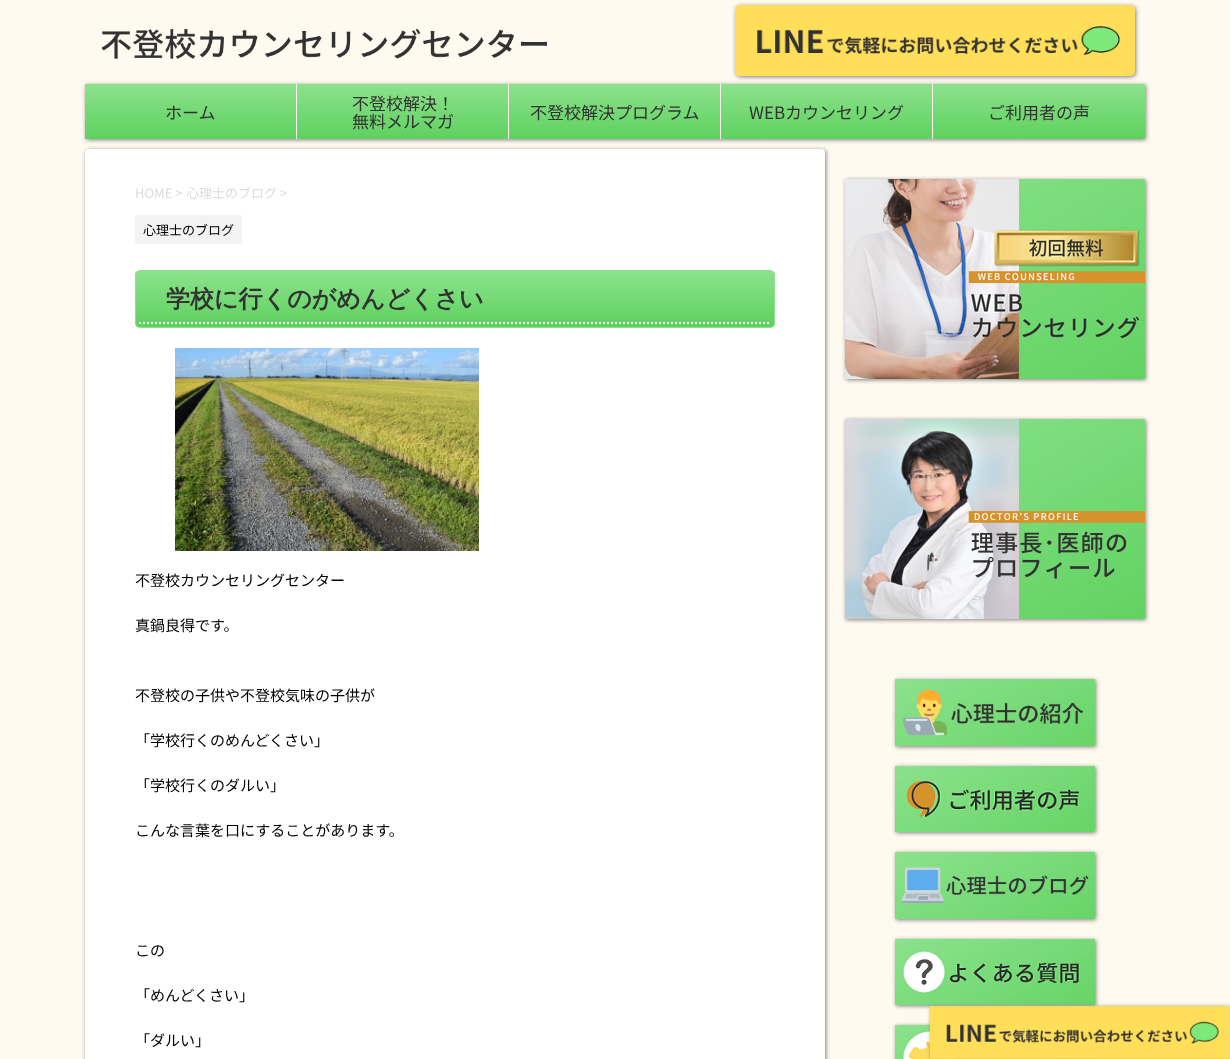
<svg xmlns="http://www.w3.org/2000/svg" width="1230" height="1059">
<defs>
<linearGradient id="g1" gradientUnits="userSpaceOnUse" x1="615" y1="84" x2="615" y2="139"><stop offset="0" stop-color="#8ce28c"/><stop offset="1" stop-color="#5ed15e"/></linearGradient>
<clipPath id="clip1"><rect x="135" y="270" width="640" height="58" rx="5"/></clipPath>
<linearGradient id="g2" gradientUnits="userSpaceOnUse" x1="455" y1="271" x2="455" y2="327"><stop offset="0" stop-color="#8ce28c"/><stop offset="1" stop-color="#5ed15e"/></linearGradient>
</defs>
<rect width="100%" height="100%" fill="#fffaf0"/>
<image x="101" y="28" width="446" height="31" href="media/1.png"/>
<rect x="736" y="6" width="400" height="71" rx="5" fill="#808080" filter="blur(2px)"/>
<image x="735" y="5" width="400" height="71" href="media/2.png"/>
<rect x="86" y="85" width="1060" height="55" rx="1" fill="#808080" filter="blur(2px)"/>
<rect x="85" y="84" width="1060" height="55" rx="1" fill="url(#g1)"/>
<rect x="296" y="84" width="1" height="55" fill="#fffaf0"/>
<text x="165" y="119" style="font-family:Noto Sans JP;font-size:17px;fill:#323232">ホーム</text>
<rect x="508" y="84" width="1" height="55" fill="#fffaf0"/>
<text x="352" y="110" style="font-family:Noto Sans JP;font-size:17px;fill:#323232">不登校解決！</text>
<text x="352" y="128" style="font-family:Noto Sans JP;font-size:17px;fill:#323232">無料メルマガ</text>
<rect x="720" y="84" width="1" height="55" fill="#fffaf0"/>
<text x="530" y="119" style="font-family:Noto Sans JP;font-size:17px;fill:#323232">不登校解決プログラム</text>
<rect x="932" y="84" width="1" height="55" fill="#fffaf0"/>
<text x="749" y="119" style="font-family:Noto Sans JP;font-size:17px;fill:#323232">WEBカウンセリング</text>
<text x="988" y="119" style="font-family:Noto Sans JP;font-size:17px;fill:#323232">ご利用者の声</text>
<rect x="86" y="150" width="740" height="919" rx="4" fill="#808080" filter="blur(2px)"/>
<rect x="85" y="149" width="740" height="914" rx="4" fill="#fff"/>
<text x="135" y="198" style="font-family:Noto Sans JP;font-size:13px;fill:#dbdbdb">HOME &gt;</text>
<text x="186" y="198" style="font-family:Noto Sans JP;font-size:13px;fill:#dbdbdb">心理士のブログ &gt;</text>
<rect x="135" y="215" width="107" height="29" rx="2" fill="#f3f3f3"/>
<text x="143" y="235" style="font-family:Noto Sans JP;font-size:13px;fill:#000">心理士のブログ</text>
<g clip-path="url(#clip1)">
<rect x="135" y="271" width="640" height="56" fill="url(#g2)"/>
</g>
<rect x="135.5" y="270.5" width="639" height="57" rx="4.5" fill="none" stroke="#8ce28c"/>
<text x="166" y="307" style="font-family:WenQuanYi Zen Hei;font-size:24px;font-weight:bold;fill:#323232">学校に行くのがめんどくさい</text>
<path d="M139 323h632" fill="none" stroke="#fff" stroke-width="2" stroke-dasharray="2 2"/>
<image x="175" y="348" width="304" height="203" href="media/3.png"/>
<text x="135" y="586" style="font-family:Noto Sans JP;font-size:15px;fill:#000">不登校カウンセリングセンター</text>
<text x="135" y="631" style="font-family:Noto Sans JP;font-size:15px;fill:#000">真鍋良得です。</text>
<text x="135" y="701" style="font-family:Noto Sans JP;font-size:15px;fill:#000">不登校の子供や不登校気味の子供が</text>
<text x="135" y="746" style="font-family:Noto Sans JP;font-size:15px;fill:#000">「学校行くのめんどくさい」</text>
<text x="135" y="791" style="font-family:Noto Sans JP;font-size:15px;fill:#000">「学校行くのダルい」</text>
<text x="135" y="836" style="font-family:Noto Sans JP;font-size:15px;fill:#000">こんな言葉を口にすることがあります。</text>
<text x="135" y="956" style="font-family:Noto Sans JP;font-size:15px;fill:#000">この</text>
<text x="135" y="1001" style="font-family:Noto Sans JP;font-size:15px;fill:#000">「めんどくさい」</text>
<text x="135" y="1046" style="font-family:Noto Sans JP;font-size:15px;fill:#000">「ダルい」</text>
<rect x="846" y="180" width="300" height="200" fill="#808080" filter="blur(2px)"/>
<image x="845" y="179" width="300" height="200" href="media/4.png"/>
<rect x="846" y="420" width="300" height="200" fill="#808080" filter="blur(2px)"/>
<image x="845" y="419" width="300" height="200" href="media/5.png"/>
<rect x="896" y="680" width="200" height="67" fill="#808080" filter="blur(2px)"/>
<image x="895" y="679" width="200" height="67" href="media/6.png"/>
<rect x="896" y="767" width="200" height="66" fill="#808080" filter="blur(2px)"/>
<image x="895" y="766" width="200" height="66" href="media/7.png"/>
<rect x="896" y="853" width="200" height="67" fill="#808080" filter="blur(2px)"/>
<image x="895" y="852" width="200" height="67" href="media/8.png"/>
<rect x="896" y="940" width="200" height="66" fill="#808080" filter="blur(2px)"/>
<image x="895" y="939" width="200" height="66" href="media/9.png"/>
<rect x="896" y="1026" width="200" height="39" fill="#808080" filter="blur(2px)"/>
<image x="895" y="1025" width="200" height="34" href="media/10.png"/>
<rect x="931" y="1007" width="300" height="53" fill="#808080" filter="blur(2px)"/>
<image x="930" y="1005" width="300" height="54" href="media/11.png"/>
</svg>
